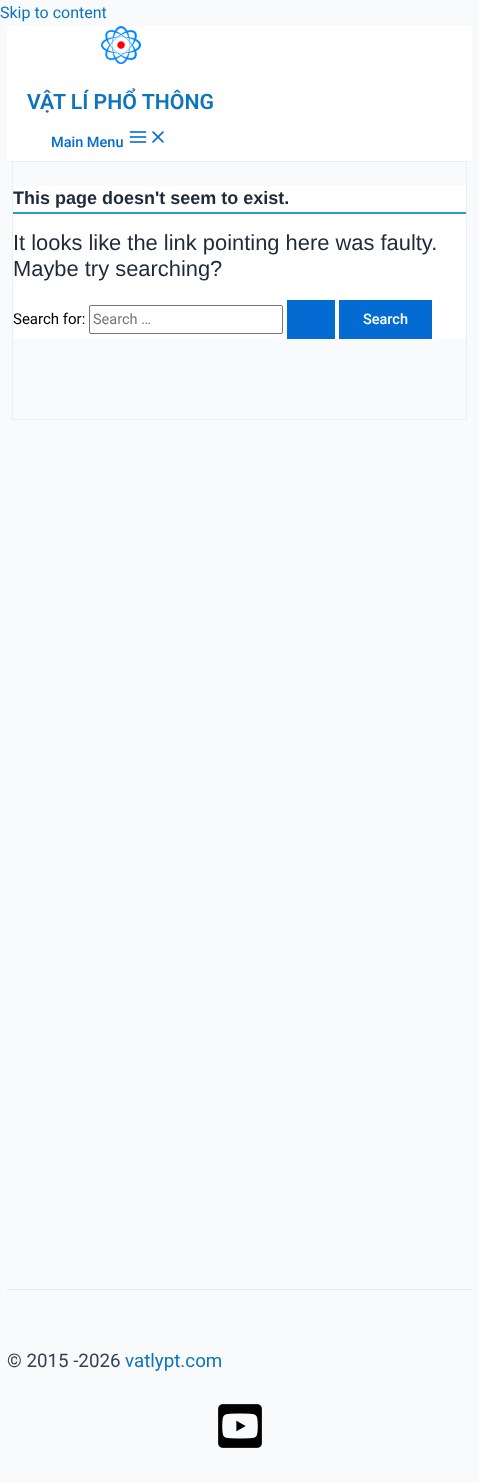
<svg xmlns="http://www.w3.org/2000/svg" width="479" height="1483">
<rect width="100%" height="100%" fill="#f9fafb"/>
<text x="0" y="18" style="font-family:Roboto;font-size:16px;fill:#0e74bc">Skip to content</text>
<rect x="7" y="26" width="465" height="135" fill="#fff"/>
<image x="101" y="26" width="40" height="38" href="media/1.png"/>
<text x="27" y="109" style="font-family:Roboto;font-size:21.25px;font-weight:600;fill:#0e74bc">VẬT LÍ PHỔ THÔNG</text>
<text x="51" y="147" style="font-family:Roboto;font-size:14.5px;font-weight:500;fill:#046bd2">Main Menu</text>
<image x="129" y="131" width="18" height="12" href="media/2.png"/>
<image x="152" y="131" width="12" height="12" href="media/3.png"/>
<rect x="12.5" y="161.5" width="454" height="258" fill="none" stroke="#eee"/>
<rect x="13" y="186" width="453" height="153" fill="#fff"/>
<rect x="13" y="212" width="453" height="2" fill="#289dcc"/>
<text x="13" y="204" style="font-family:Liberation Sans;font-size:18px;font-weight:bold;fill:#1e293b">This page doesn't seem to exist.</text>
<text x="13" y="250" style="font-family:Liberation Sans;font-size:21.9px;fill:#1e293b">It looks like the link pointing here was faulty.</text>
<text x="13" y="276" style="font-family:Liberation Sans;font-size:21.9px;fill:#1e293b">Maybe try searching?</text>
<text x="13" y="324" style="font-family:Roboto;font-size:15px;fill:#000">Search for:</text>
<rect x="89.5" y="305.5" width="193" height="28" rx="1.5" fill="none" stroke="#767676"/>
<text x="93" y="324" style="font-family:Roboto;font-size:14.5px;fill:#757575">Search …</text>
<rect x="287" y="300" width="48" height="39" fill="#046bd2"/>
<rect x="339" y="300" width="93" height="39" fill="#046bd2"/>
<text x="363" y="324" style="font-family:Roboto;font-size:14.5px;font-weight:500;fill:#fff">Search</text>
<rect x="7" y="1289" width="465" height="1" fill="#e6e6e6"/>
<text x="7" y="1367" style="font-family:Roboto;font-size:18.75px;fill:#334155">© 2015 -2026</text>
<text x="125" y="1367" style="font-family:Roboto;font-size:18.75px;fill:#0e74bc">vatlypt.com</text>
<image x="218" y="1404" width="44" height="44" href="media/4.png"/>
</svg>
